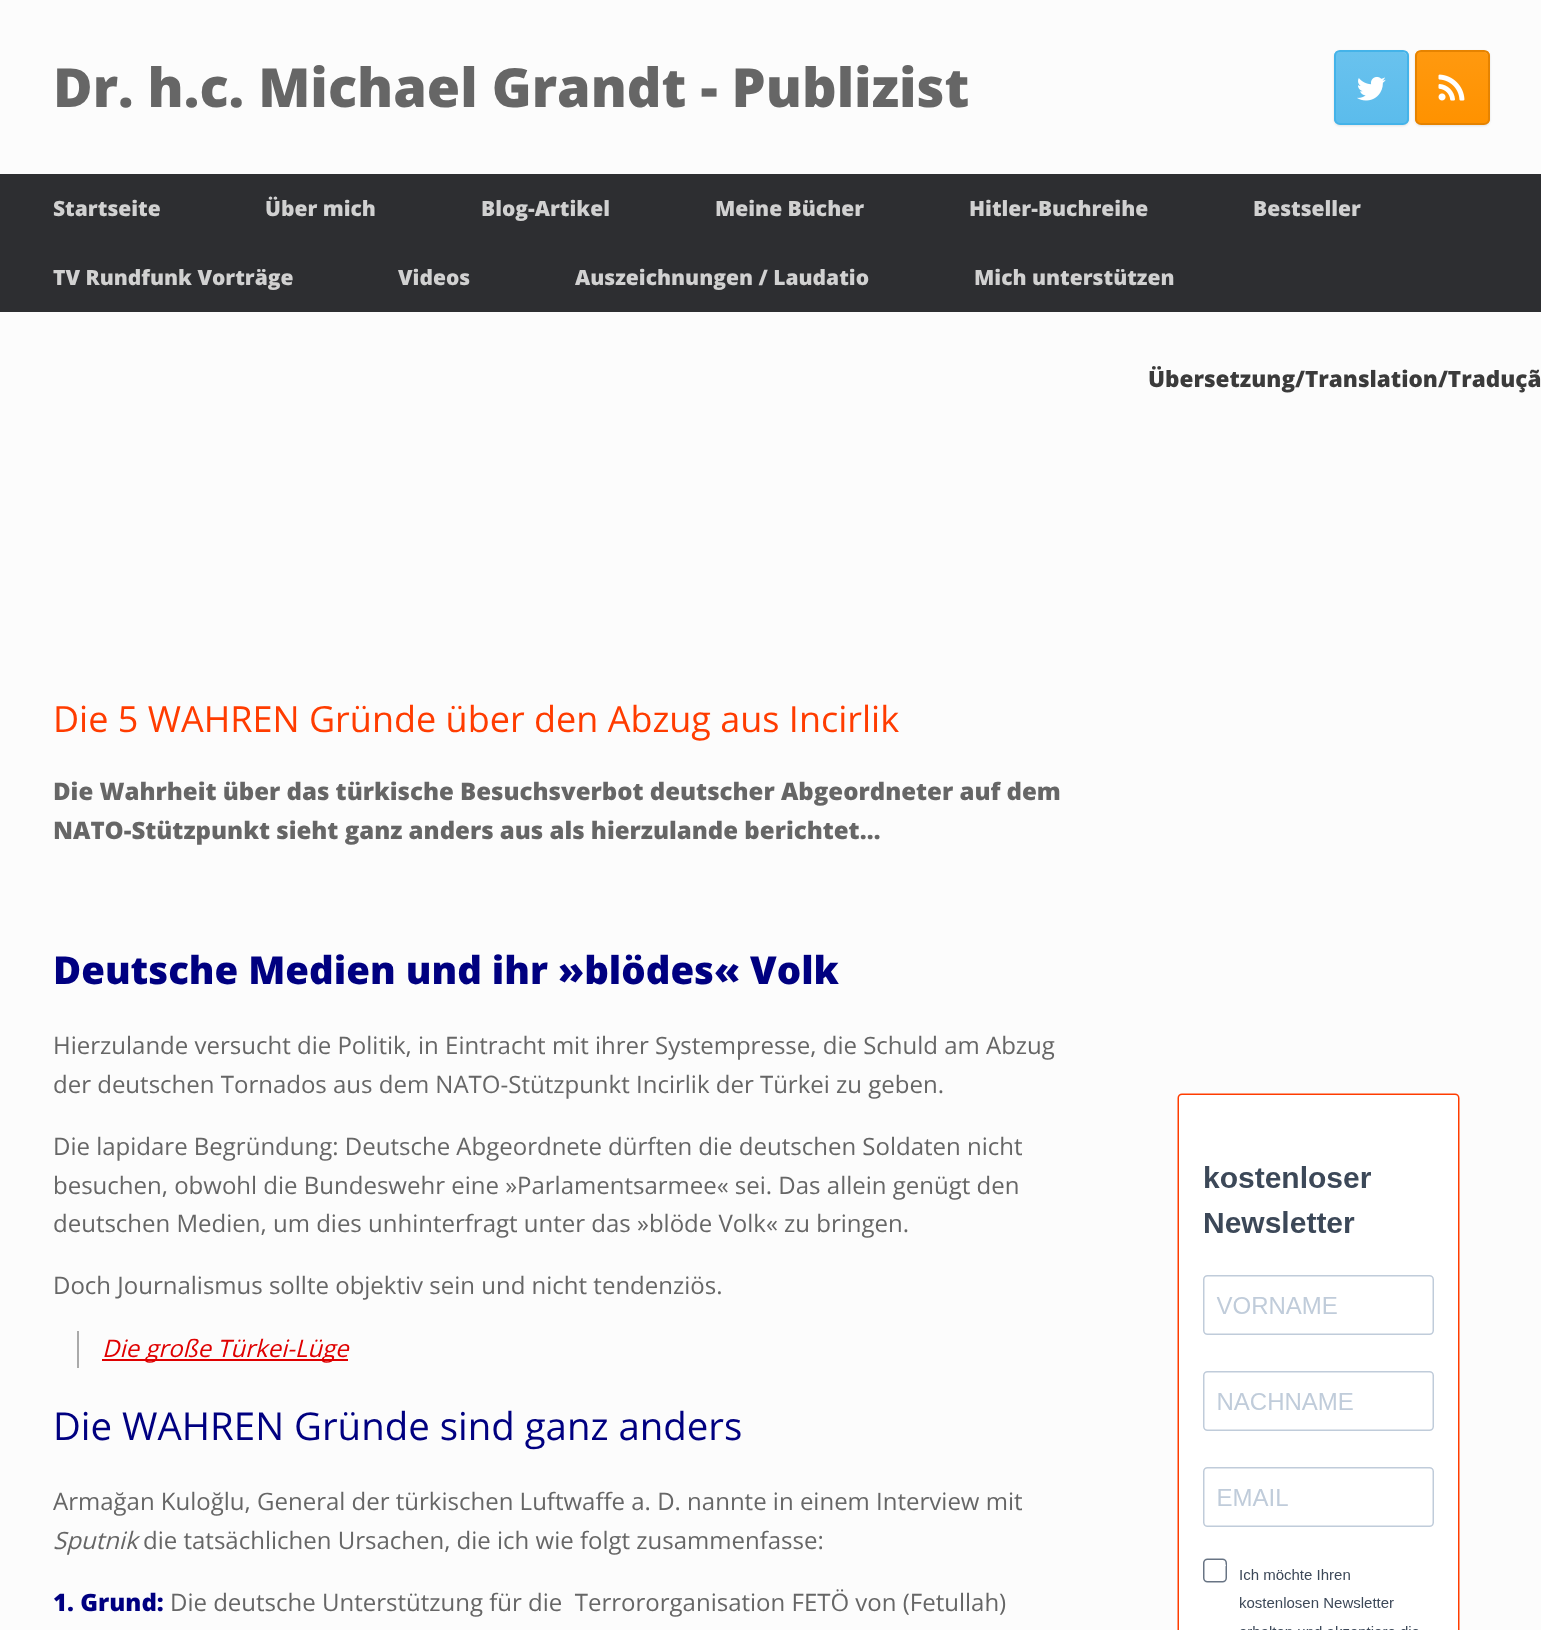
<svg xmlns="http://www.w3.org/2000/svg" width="1541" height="1630">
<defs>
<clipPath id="clip1"><rect x="1334" y="50" width="75" height="75" rx="6"/></clipPath>
<linearGradient id="g1" gradientUnits="userSpaceOnUse" x1="1335" y1="123" x2="1335" y2="51"><stop offset="0" stop-color="#5bbcec"/><stop offset="1" stop-color="#69c2ee"/></linearGradient>
<clipPath id="clip2"><rect x="1415" y="50" width="75" height="75" rx="6"/></clipPath>
<linearGradient id="g2" gradientUnits="userSpaceOnUse" x1="1416" y1="123" x2="1416" y2="51"><stop offset="0" stop-color="#ff9200"/><stop offset="1" stop-color="#ff990f"/></linearGradient>
</defs>
<rect width="100%" height="100%" fill="#fcfcfc"/>
<text x="53" y="107" style="font-family:Open Sans;font-size:54px;font-weight:800;fill:#666">Dr. h.c. Michael Grandt - Publizist</text>
<rect x="1334" y="51" width="75" height="75" rx="6" fill="#0000001a" filter="blur(1px)"/>
<g clip-path="url(#clip1)">
<rect x="1334" y="51" width="75" height="72" fill="url(#g1)"/>
</g>
<path d="M1340 52h62c3 0 5 3 5 5c0-8-10-6-15-6h-42c-5 0-15-2-15 6c0-2 2-5 5-5z" fill="#8fd1f2"/>
<rect x="1335" y="51" width="73" height="73" rx="5" fill="none" stroke="#44b3e9" stroke-width="2"/>
<image x="1357" y="76" width="29" height="25" href="media/1.png"/>
<rect x="1415" y="51" width="75" height="75" rx="6" fill="#0000001a" filter="blur(1px)"/>
<g clip-path="url(#clip2)">
<rect x="1415" y="51" width="75" height="72" fill="url(#g2)"/>
</g>
<path d="M1420 52h64c2 0 4 3 4 5c0-8-10-6-15-6h-42c-5 0-15-2-15 6c0-2 2-5 4-5z" fill="#ffad3f"/>
<rect x="1416" y="51" width="73" height="73" rx="5" fill="none" stroke="#e68300" stroke-width="2"/>
<image x="1438" y="74" width="27" height="27" href="media/2.png"/>
<rect y="174" width="1541" height="138" fill="#2d2e31"/>
<text x="53" y="216" style="font-family:Open Sans;font-size:21px;font-weight:800;fill:#d1d1d1">Startseite</text>
<text x="265" y="216" style="font-family:Open Sans;font-size:21px;font-weight:800;fill:#d1d1d1">Über mich</text>
<text x="481" y="216" style="font-family:Open Sans;font-size:21px;font-weight:800;fill:#d1d1d1">Blog-Artikel</text>
<text x="715" y="216" style="font-family:Open Sans;font-size:21px;font-weight:800;fill:#d1d1d1">Meine Bücher</text>
<text x="969" y="216" style="font-family:Open Sans;font-size:21px;font-weight:800;fill:#d1d1d1">Hitler-Buchreihe</text>
<text x="1253" y="216" style="font-family:Open Sans;font-size:21px;font-weight:800;fill:#d1d1d1">Bestseller</text>
<text x="53" y="285" style="font-family:Open Sans;font-size:21px;font-weight:800;fill:#d1d1d1">TV Rundfunk Vorträge</text>
<text x="398" y="285" style="font-family:Open Sans;font-size:21px;font-weight:800;fill:#d1d1d1">Videos</text>
<text x="575" y="285" style="font-family:Open Sans;font-size:21px;font-weight:800;fill:#d1d1d1">Auszeichnungen / Laudatio</text>
<text x="974" y="285" style="font-family:Open Sans;font-size:21px;font-weight:800;fill:#d1d1d1">Mich unterstützen</text>
<text x="1148" y="387" style="font-family:Open Sans;font-size:22.5px;font-weight:800;fill:#3b3b3b">Übersetzung/Translation/Traduçã</text>
<image x="1177" y="1093" width="283" height="537" href="media/3.png"/>
<text x="53" y="732" style="font-family:Open Sans;font-size:36px;fill:#ff3c00">Die 5 WAHREN Gründe über den Abzug aus Incirlik</text>
<text x="53" y="800" style="font-family:Open Sans;font-size:24px;font-weight:800;fill:#666">Die Wahrheit über das türkische Besuchsverbot deutscher Abgeordneter auf dem</text>
<text x="53" y="839" style="font-family:Open Sans;font-size:24px;font-weight:800;fill:#666">NATO-Stützpunkt sieht ganz anders aus als hierzulande berichtet…</text>
<text x="53" y="984" style="font-family:Open Sans;font-size:38.4px;font-weight:800;fill:#000080">Deutsche Medien und ihr »blödes« Volk</text>
<text x="53" y="1054" style="font-family:Open Sans;font-size:24px;fill:#666">Hierzulande versucht die Politik, in Eintracht mit ihrer Systempresse, die Schuld am Abzug</text>
<text x="53" y="1093" style="font-family:Open Sans;font-size:24px;fill:#666">der deutschen Tornados aus dem NATO-Stützpunkt Incirlik der Türkei zu geben.</text>
<text x="53" y="1155" style="font-family:Open Sans;font-size:24px;fill:#666">Die lapidare Begründung: Deutsche Abgeordnete dürften die deutschen Soldaten nicht</text>
<text x="53" y="1194" style="font-family:Open Sans;font-size:24px;fill:#666">besuchen, obwohl die Bundeswehr eine »Parlamentsarmee« sei. Das allein genügt den</text>
<text x="53" y="1232" style="font-family:Open Sans;font-size:24px;fill:#666">deutschen Medien, um dies unhinterfragt unter das »blöde Volk« zu bringen.</text>
<text x="53" y="1294" style="font-family:Open Sans;font-size:24px;fill:#666">Doch Journalismus sollte objektiv sein und nicht tendenziös.</text>
<rect x="77" y="1331" width="2" height="37" fill="#aaa"/>
<rect x="102" y="1359" width="246" height="2" fill="#df0101"/>
<text x="102" y="1357" style="font-family:Open Sans;font-size:24px;font-style:italic;fill:#df0101">Die große Türkei-Lüge</text>
<text x="53" y="1440" style="font-family:Open Sans;font-size:38.4px;fill:#000080">Die WAHREN Gründe sind ganz anders</text>
<text x="53" y="1510" style="font-family:Open Sans;font-size:24px;fill:#666">Armağan Kuloğlu, General der türkischen Luftwaffe a. D. nannte in einem Interview mit</text>
<text x="53" y="1549" style="font-family:Open Sans;font-size:24px;font-style:italic;fill:#666">Sputnik</text>
<text x="143" y="1549" style="font-family:Open Sans;font-size:24px;fill:#666">die tatsächlichen Ursachen, die ich wie folgt zusammenfasse:</text>
<text x="53" y="1611" style="font-family:Open Sans;font-size:24px;font-weight:800;fill:#000080">1. Grund:</text>
<text x="170" y="1611" style="font-family:Open Sans;font-size:24px;fill:#666" xml:space="preserve">Die deutsche Unterstützung für die  Terrororganisation FETÖ von (Fetullah)</text>
</svg>
